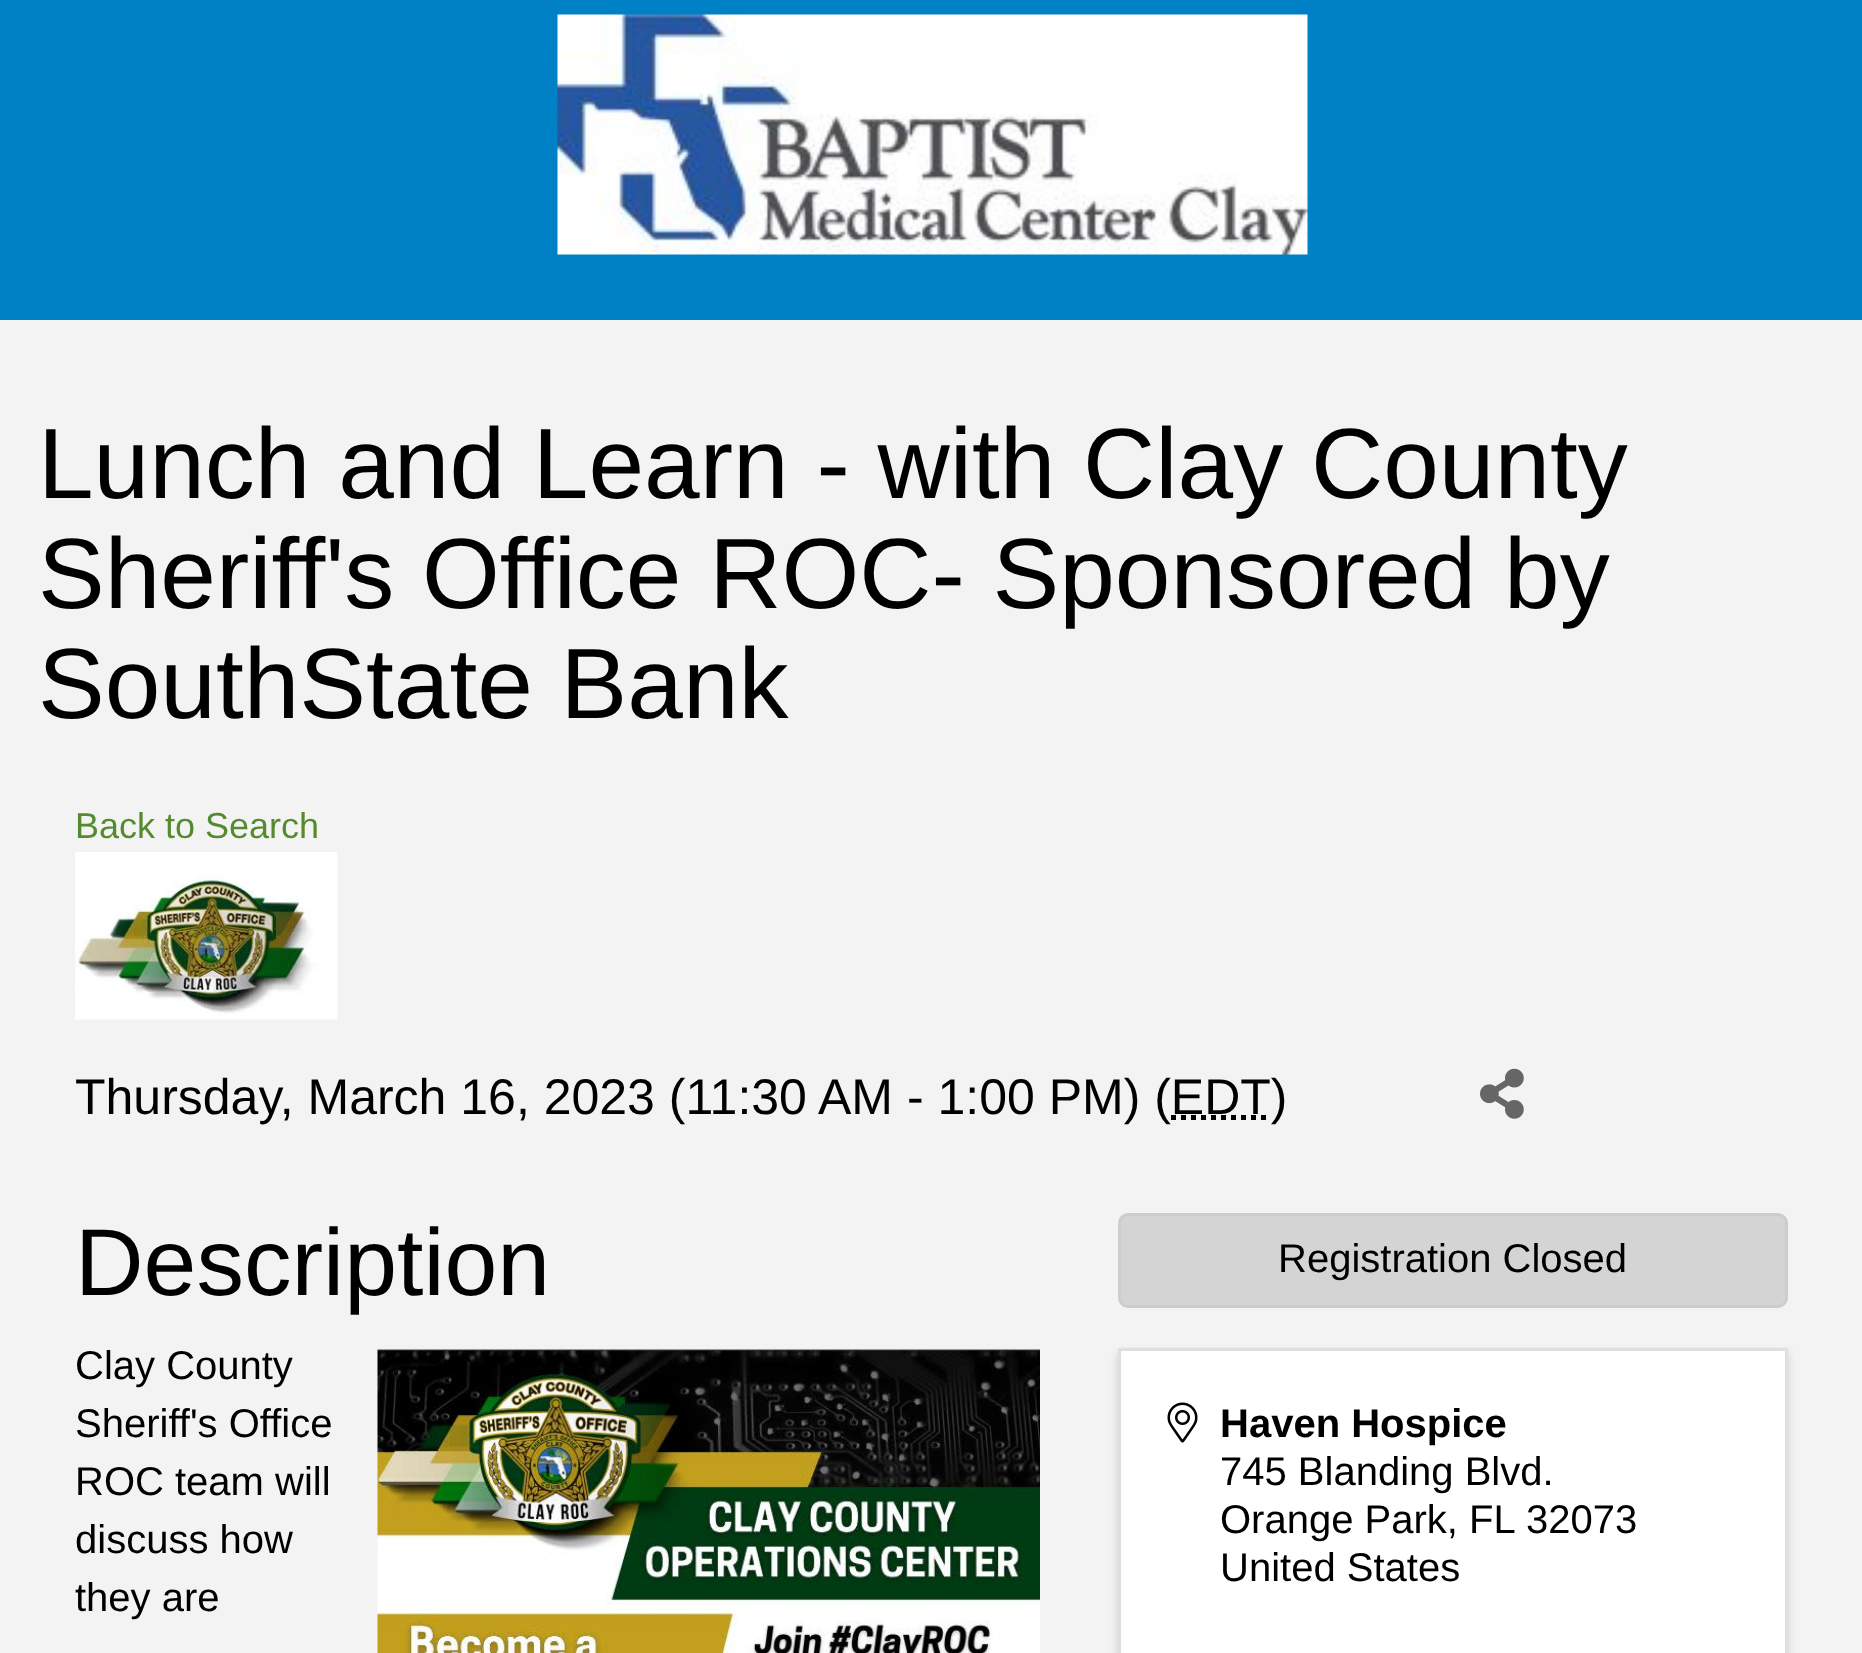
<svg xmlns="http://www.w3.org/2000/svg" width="1862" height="1653">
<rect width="100%" height="100%" fill="#0081c6"/>
<image x="557" y="14" width="751" height="241" href="media/1.png"/>
<rect y="320" width="1862" height="1333" fill="#f3f3f3"/>
<text x="38" y="498" style="font-family:Liberation Sans;font-size:100px;fill:#000">Lunch and Learn - with Clay County</text>
<text x="38" y="608" style="font-family:Liberation Sans;font-size:100px;fill:#000">Sheriff's Office ROC- Sponsored by</text>
<text x="38" y="718" style="font-family:Liberation Sans;font-size:100px;fill:#000">SouthState Bank</text>
<text x="75" y="838" style="font-family:Liberation Sans;font-size:36px;fill:#568a2f">Back to Search</text>
<image x="75" y="852" width="263" height="168" href="media/2.png"/>
<text x="75" y="1114" style="font-family:Liberation Sans;font-size:50px;fill:#000">Thursday, March 16, 2023 (11:30 AM - 1:00 PM) (EDT)</text>
<path d="M1171 1117.5h100" fill="none" stroke="#000" stroke-width="5" stroke-dasharray="5 5"/>
<image x="1480" y="1068" width="44" height="51" href="media/3.png"/>
<text x="75" y="1295" style="font-family:Liberation Sans;font-size:95px;fill:#000">Description</text>
<text x="75" y="1379" style="font-family:Liberation Sans;font-size:40px;fill:#000">Clay County</text>
<image x="377" y="1349" width="663" height="304" href="media/4.png"/>
<text x="75" y="1437" style="font-family:Liberation Sans;font-size:40px;fill:#000">Sheriff's Office</text>
<text x="75" y="1495" style="font-family:Liberation Sans;font-size:40px;fill:#000">ROC team will</text>
<text x="75" y="1553" style="font-family:Liberation Sans;font-size:40px;fill:#000">discuss how</text>
<text x="75" y="1611" style="font-family:Liberation Sans;font-size:40px;fill:#000">they are</text>
<rect x="1119.5" y="1214.5" width="667" height="92" rx="8.5" fill="#d4d4d4" stroke="#cdcdcd" stroke-width="3"/>
<text x="1278" y="1272" style="font-family:Liberation Sans;font-size:40px;fill:#000">Registration Closed</text>
<rect x="1118" y="1353" width="670" height="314" fill="#00000026" filter="blur(4.5px)"/>
<rect x="1119.5" y="1349.5" width="667" height="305" fill="#fff" stroke="#dfdfdf" stroke-width="3"/>
<image x="1167" y="1402" width="31" height="41" href="media/5.png"/>
<text x="1220" y="1437" style="font-family:Liberation Sans;font-size:40px;font-weight:bold;fill:#000">Haven Hospice</text>
<text x="1220" y="1485" style="font-family:Liberation Sans;font-size:40px;fill:#000">745 Blanding Blvd.</text>
<text x="1220" y="1533" style="font-family:Liberation Sans;font-size:40px;fill:#000">Orange Park, FL</text>
<text x="1526" y="1533" style="font-family:Liberation Sans;font-size:40px;fill:#000">32073</text>
<text x="1220" y="1581" style="font-family:Liberation Sans;font-size:40px;fill:#000">United States</text>
</svg>
